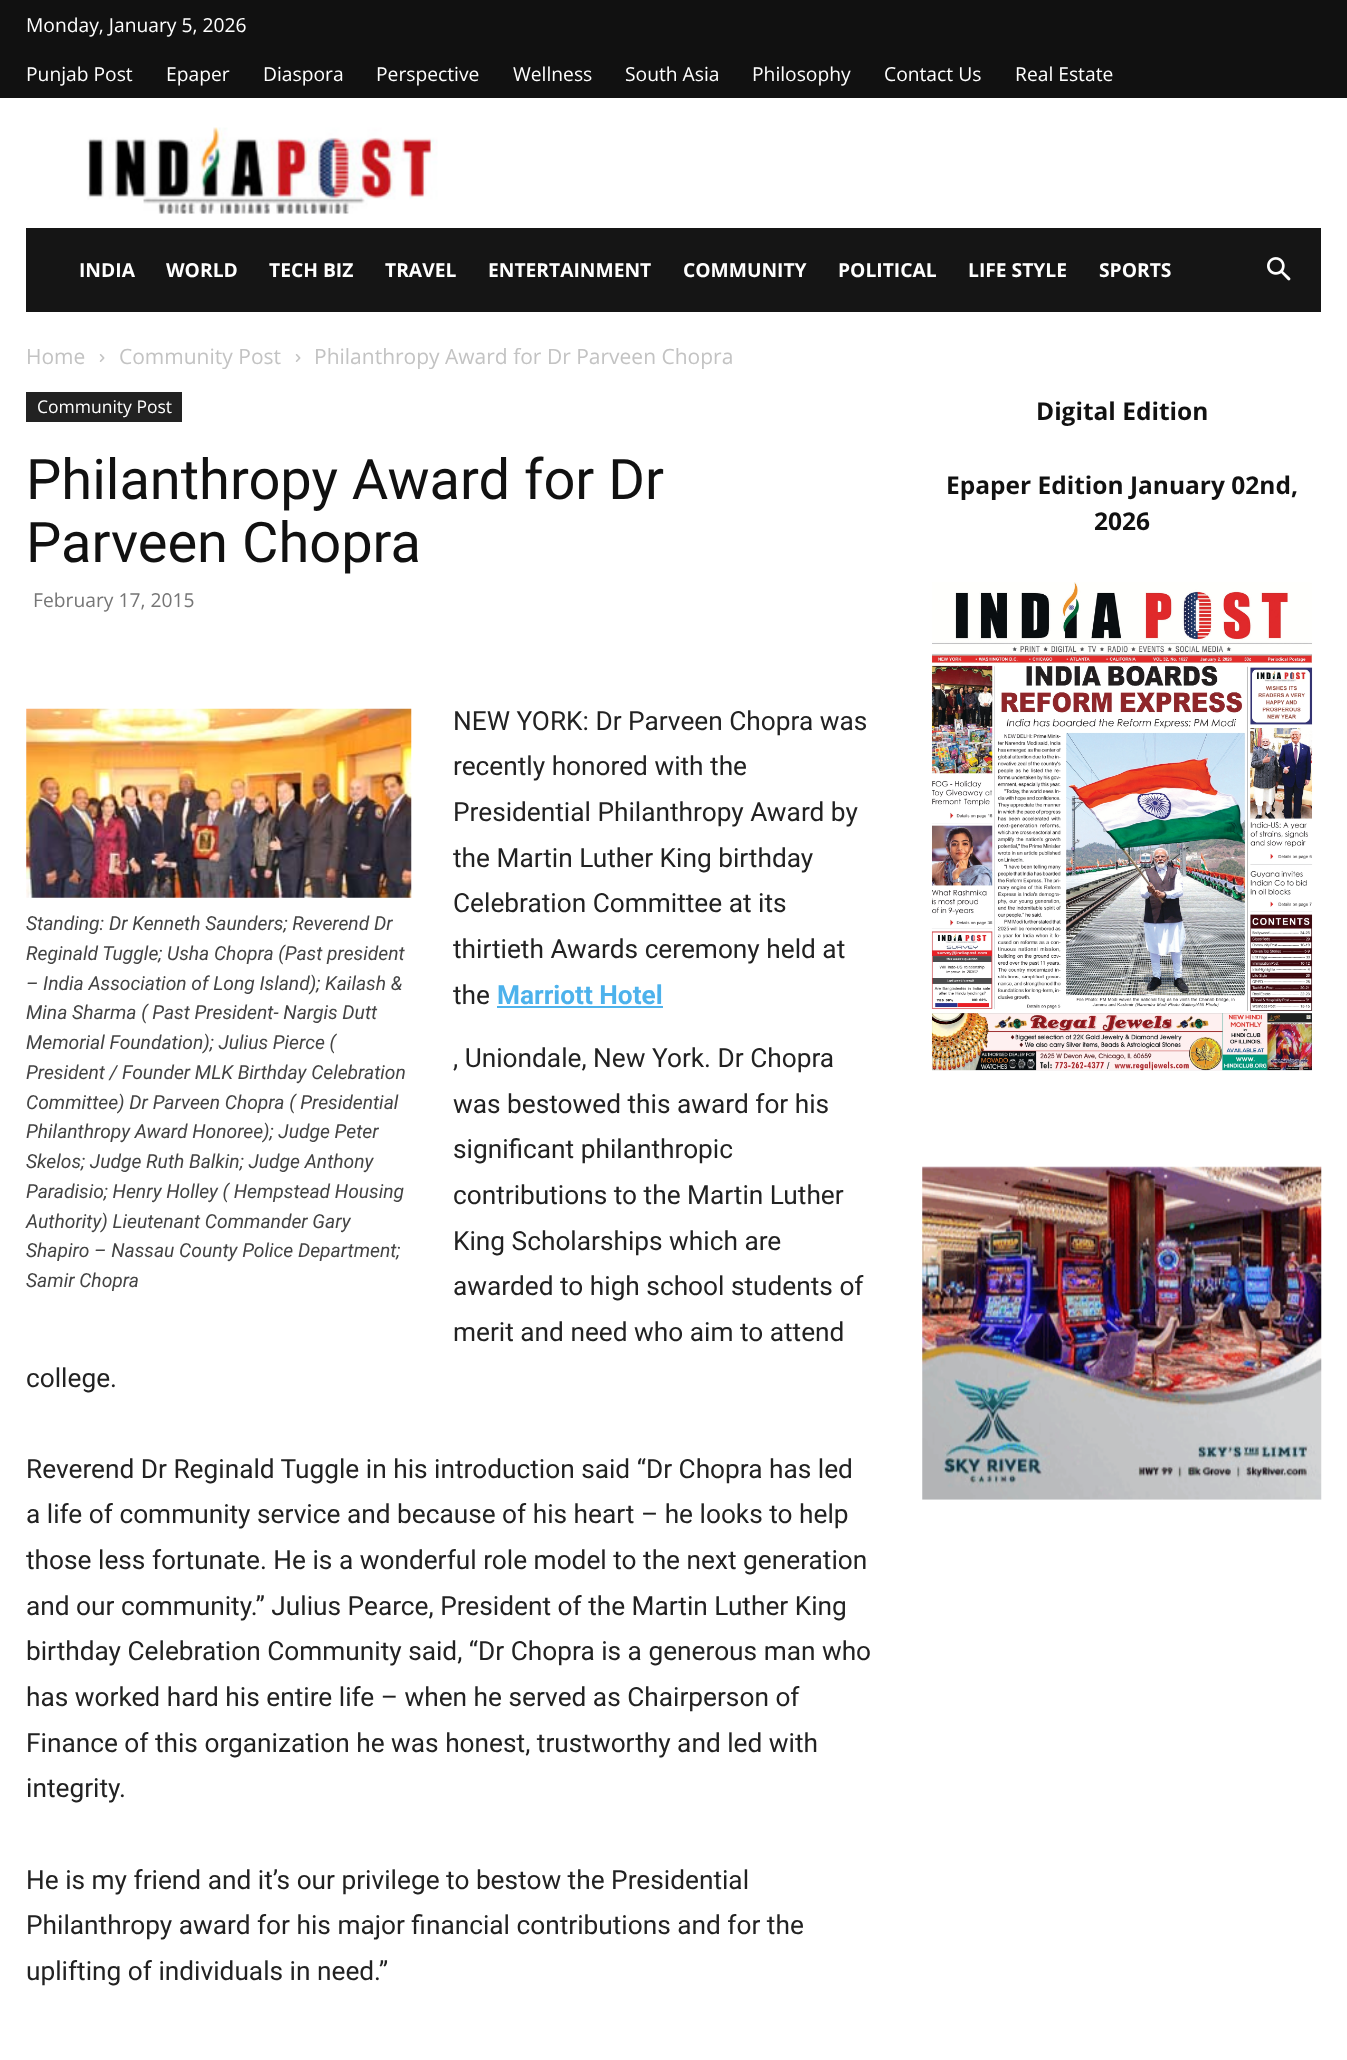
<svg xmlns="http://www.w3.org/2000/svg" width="1347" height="2060">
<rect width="100%" height="100%" fill="#fff"/>
<rect width="1347" height="98" fill="#111"/>
<text x="26" y="32" style="font-family:Open Sans;font-size:19.25px;fill:#fff">Monday, January 5, 2026</text>
<text x="26" y="81" style="font-family:Open Sans;font-size:19.25px;fill:#fff">Punjab Post</text>
<text x="166" y="81" style="font-family:Open Sans;font-size:19.25px;fill:#fff">Epaper</text>
<text x="263" y="81" style="font-family:Open Sans;font-size:19.25px;fill:#fff">Diaspora</text>
<text x="376" y="81" style="font-family:Open Sans;font-size:19.25px;fill:#fff">Perspective</text>
<text x="513" y="81" style="font-family:Open Sans;font-size:19.25px;fill:#fff">Wellness</text>
<text x="625" y="81" style="font-family:Open Sans;font-size:19.25px;fill:#fff">South Asia</text>
<text x="752" y="81" style="font-family:Open Sans;font-size:19.25px;fill:#fff">Philosophy</text>
<text x="884" y="81" style="font-family:Open Sans;font-size:19.25px;fill:#fff">Contact Us</text>
<text x="1015" y="81" style="font-family:Open Sans;font-size:19.25px;fill:#fff">Real Estate</text>
<image x="87" y="127" width="351" height="87" href="media/1.png"/>
<rect x="26" y="228" width="1295" height="84" fill="#151515"/>
<text x="79" y="277" style="font-family:Open Sans;font-size:19.25px;font-weight:bold;fill:#fff">INDIA</text>
<text x="166" y="277" style="font-family:Open Sans;font-size:19.25px;font-weight:bold;fill:#fff">WORLD</text>
<text x="269" y="277" style="font-family:Open Sans;font-size:19.25px;font-weight:bold;fill:#fff">TECH BIZ</text>
<text x="385" y="277" style="font-family:Open Sans;font-size:19.25px;font-weight:bold;fill:#fff">TRAVEL</text>
<text x="488" y="277" style="font-family:Open Sans;font-size:19.25px;font-weight:bold;fill:#fff">ENTERTAINMENT</text>
<text x="683" y="277" style="font-family:Open Sans;font-size:19.25px;font-weight:bold;fill:#fff">COMMUNITY</text>
<text x="838" y="277" style="font-family:Open Sans;font-size:19.25px;font-weight:bold;fill:#fff">POLITICAL</text>
<text x="968" y="277" style="font-family:Open Sans;font-size:19.25px;font-weight:bold;fill:#fff">LIFE STYLE</text>
<text x="1099" y="277" style="font-family:Open Sans;font-size:19.25px;font-weight:bold;fill:#fff">SPORTS</text>
<image x="1267" y="257" width="24" height="24" href="media/2.png"/>
<text x="26" y="364" style="font-family:Open Sans;font-size:21px;fill:#c3c3c3">Home</text>
<image x="99" y="354" width="6" height="8" href="media/3.png"/>
<text x="119" y="364" style="font-family:Open Sans;font-size:21px;fill:#c3c3c3">Community Post</text>
<image x="295" y="354" width="6" height="8" href="media/3.png"/>
<text x="314" y="364" style="font-family:Open Sans;font-size:21px;fill:#c3c3c3">Philanthropy Award for Dr Parveen Chopra</text>
<rect x="26" y="392" width="156" height="30" fill="#222"/>
<text x="37" y="413" style="font-family:Open Sans;font-size:17.5px;fill:#fff">Community Post</text>
<text x="26" y="499" style="font-family:Roboto;font-size:56px;fill:#111">Philanthropy Award for Dr</text>
<text x="26" y="562" style="font-family:Roboto;font-size:56px;fill:#111">Parveen Chopra</text>
<text x="33" y="607" style="font-family:Open Sans;font-size:19.25px;fill:#767676">February 17, 2015</text>
<text x="453" y="730" style="font-family:Roboto;font-size:26.25px;fill:#222">NEW YORK: Dr Parveen Chopra was</text>
<text x="453" y="775" style="font-family:Roboto;font-size:26.25px;fill:#222">recently honored with the</text>
<text x="453" y="821" style="font-family:Roboto;font-size:26.25px;fill:#222">Presidential Philanthropy Award by</text>
<text x="453" y="867" style="font-family:Roboto;font-size:26.25px;fill:#222">the Martin Luther King birthday</text>
<text x="453" y="912" style="font-family:Roboto;font-size:26.25px;fill:#222">Celebration Committee at its</text>
<text x="453" y="958" style="font-family:Roboto;font-size:26.25px;fill:#222">thirtieth Awards ceremony held at</text>
<text x="453" y="1004" style="font-family:Roboto;font-size:26.25px;fill:#222">the</text>
<text x="497" y="1004" style="font-family:Roboto;font-size:26.25px;font-weight:bold;fill:#4db2ec">Marriott Hotel</text>
<rect x="497" y="1006" width="166" height="2" fill="#4db2ec"/>
<text x="453" y="1067" style="font-family:Roboto;font-size:26.25px;fill:#222">, Uniondale, New York. Dr Chopra</text>
<text x="453" y="1113" style="font-family:Roboto;font-size:26.25px;fill:#222">was bestowed this award for his</text>
<text x="453" y="1158" style="font-family:Roboto;font-size:26.25px;fill:#222">significant philanthropic</text>
<text x="453" y="1204" style="font-family:Roboto;font-size:26.25px;fill:#222">contributions to the Martin Luther</text>
<text x="453" y="1250" style="font-family:Roboto;font-size:26.25px;fill:#222">King Scholarships which are</text>
<text x="453" y="1295" style="font-family:Roboto;font-size:26.25px;fill:#222">awarded to high school students of</text>
<text x="453" y="1341" style="font-family:Roboto;font-size:26.25px;fill:#222">merit and need who aim to attend</text>
<text x="26" y="1387" style="font-family:Roboto;font-size:26.25px;fill:#222">college.</text>
<image x="26" y="708" width="386" height="190" href="media/4.png"/>
<text x="26" y="930" style="font-family:Roboto;font-size:19.25px;font-style:italic;fill:#444">Standing: Dr Kenneth Saunders; Reverend Dr</text>
<text x="26" y="960" style="font-family:Roboto;font-size:19.25px;font-style:italic;fill:#444">Reginald Tuggle; Usha Chopra (Past president</text>
<text x="26" y="990" style="font-family:Roboto;font-size:19.25px;font-style:italic;fill:#444">– India Association of Long Island); Kailash &amp;</text>
<text x="26" y="1019" style="font-family:Roboto;font-size:19.25px;font-style:italic;fill:#444">Mina Sharma ( Past President- Nargis Dutt</text>
<text x="26" y="1049" style="font-family:Roboto;font-size:19.25px;font-style:italic;fill:#444">Memorial Foundation); Julius Pierce (</text>
<text x="26" y="1079" style="font-family:Roboto;font-size:19.25px;font-style:italic;fill:#444">President / Founder MLK Birthday Celebration</text>
<text x="26" y="1109" style="font-family:Roboto;font-size:19.25px;font-style:italic;fill:#444">Committee) Dr Parveen Chopra ( Presidential</text>
<text x="26" y="1138" style="font-family:Roboto;font-size:19.25px;font-style:italic;fill:#444">Philanthropy Award Honoree); Judge Peter</text>
<text x="26" y="1168" style="font-family:Roboto;font-size:19.25px;font-style:italic;fill:#444">Skelos; Judge Ruth Balkin; Judge Anthony</text>
<text x="26" y="1198" style="font-family:Roboto;font-size:19.25px;font-style:italic;fill:#444">Paradisio; Henry Holley ( Hempstead Housing</text>
<text x="26" y="1228" style="font-family:Roboto;font-size:19.25px;font-style:italic;fill:#444">Authority) Lieutenant Commander Gary</text>
<text x="26" y="1257" style="font-family:Roboto;font-size:19.25px;font-style:italic;fill:#444">Shapiro – Nassau County Police Department;</text>
<text x="26" y="1287" style="font-family:Roboto;font-size:19.25px;font-style:italic;fill:#444">Samir Chopra</text>
<text x="26" y="1478" style="font-family:Roboto;font-size:26.25px;fill:#222">Reverend Dr Reginald Tuggle in his introduction said “Dr Chopra has led</text>
<text x="26" y="1523" style="font-family:Roboto;font-size:26.25px;fill:#222">a life of community service and because of his heart – he looks to help</text>
<text x="26" y="1569" style="font-family:Roboto;font-size:26.25px;fill:#222">those less fortunate. He is a wonderful role model to the next generation</text>
<text x="26" y="1615" style="font-family:Roboto;font-size:26.25px;fill:#222">and our community.” Julius Pearce, President of the Martin Luther King</text>
<text x="26" y="1660" style="font-family:Roboto;font-size:26.25px;fill:#222">birthday Celebration Community said, “Dr Chopra is a generous man who</text>
<text x="26" y="1706" style="font-family:Roboto;font-size:26.25px;fill:#222">has worked hard his entire life – when he served as Chairperson of</text>
<text x="26" y="1752" style="font-family:Roboto;font-size:26.25px;fill:#222">Finance of this organization he was honest, trustworthy and led with</text>
<text x="26" y="1797" style="font-family:Roboto;font-size:26.25px;fill:#222">integrity.</text>
<text x="26" y="1889" style="font-family:Roboto;font-size:26.25px;fill:#222">He is my friend and it’s our privilege to bestow the Presidential</text>
<text x="26" y="1934" style="font-family:Roboto;font-size:26.25px;fill:#222">Philanthropy award for his major financial contributions and for the</text>
<text x="26" y="1980" style="font-family:Roboto;font-size:26.25px;fill:#222">uplifting of individuals in need.”</text>
<text x="1036" y="420" style="font-family:Open Sans;font-size:24.5px;font-weight:bold;fill:#111">Digital Edition</text>
<text x="946" y="494" style="font-family:Open Sans;font-size:24.5px;font-weight:bold;fill:#111">Epaper Edition January 02nd,</text>
<text x="1094" y="530" style="font-family:Open Sans;font-size:24.5px;font-weight:bold;fill:#111">2026</text>
<image x="931" y="582" width="382" height="489" href="media/5.png"/>
<image x="922" y="1166" width="400" height="334" href="media/6.png"/>
</svg>
